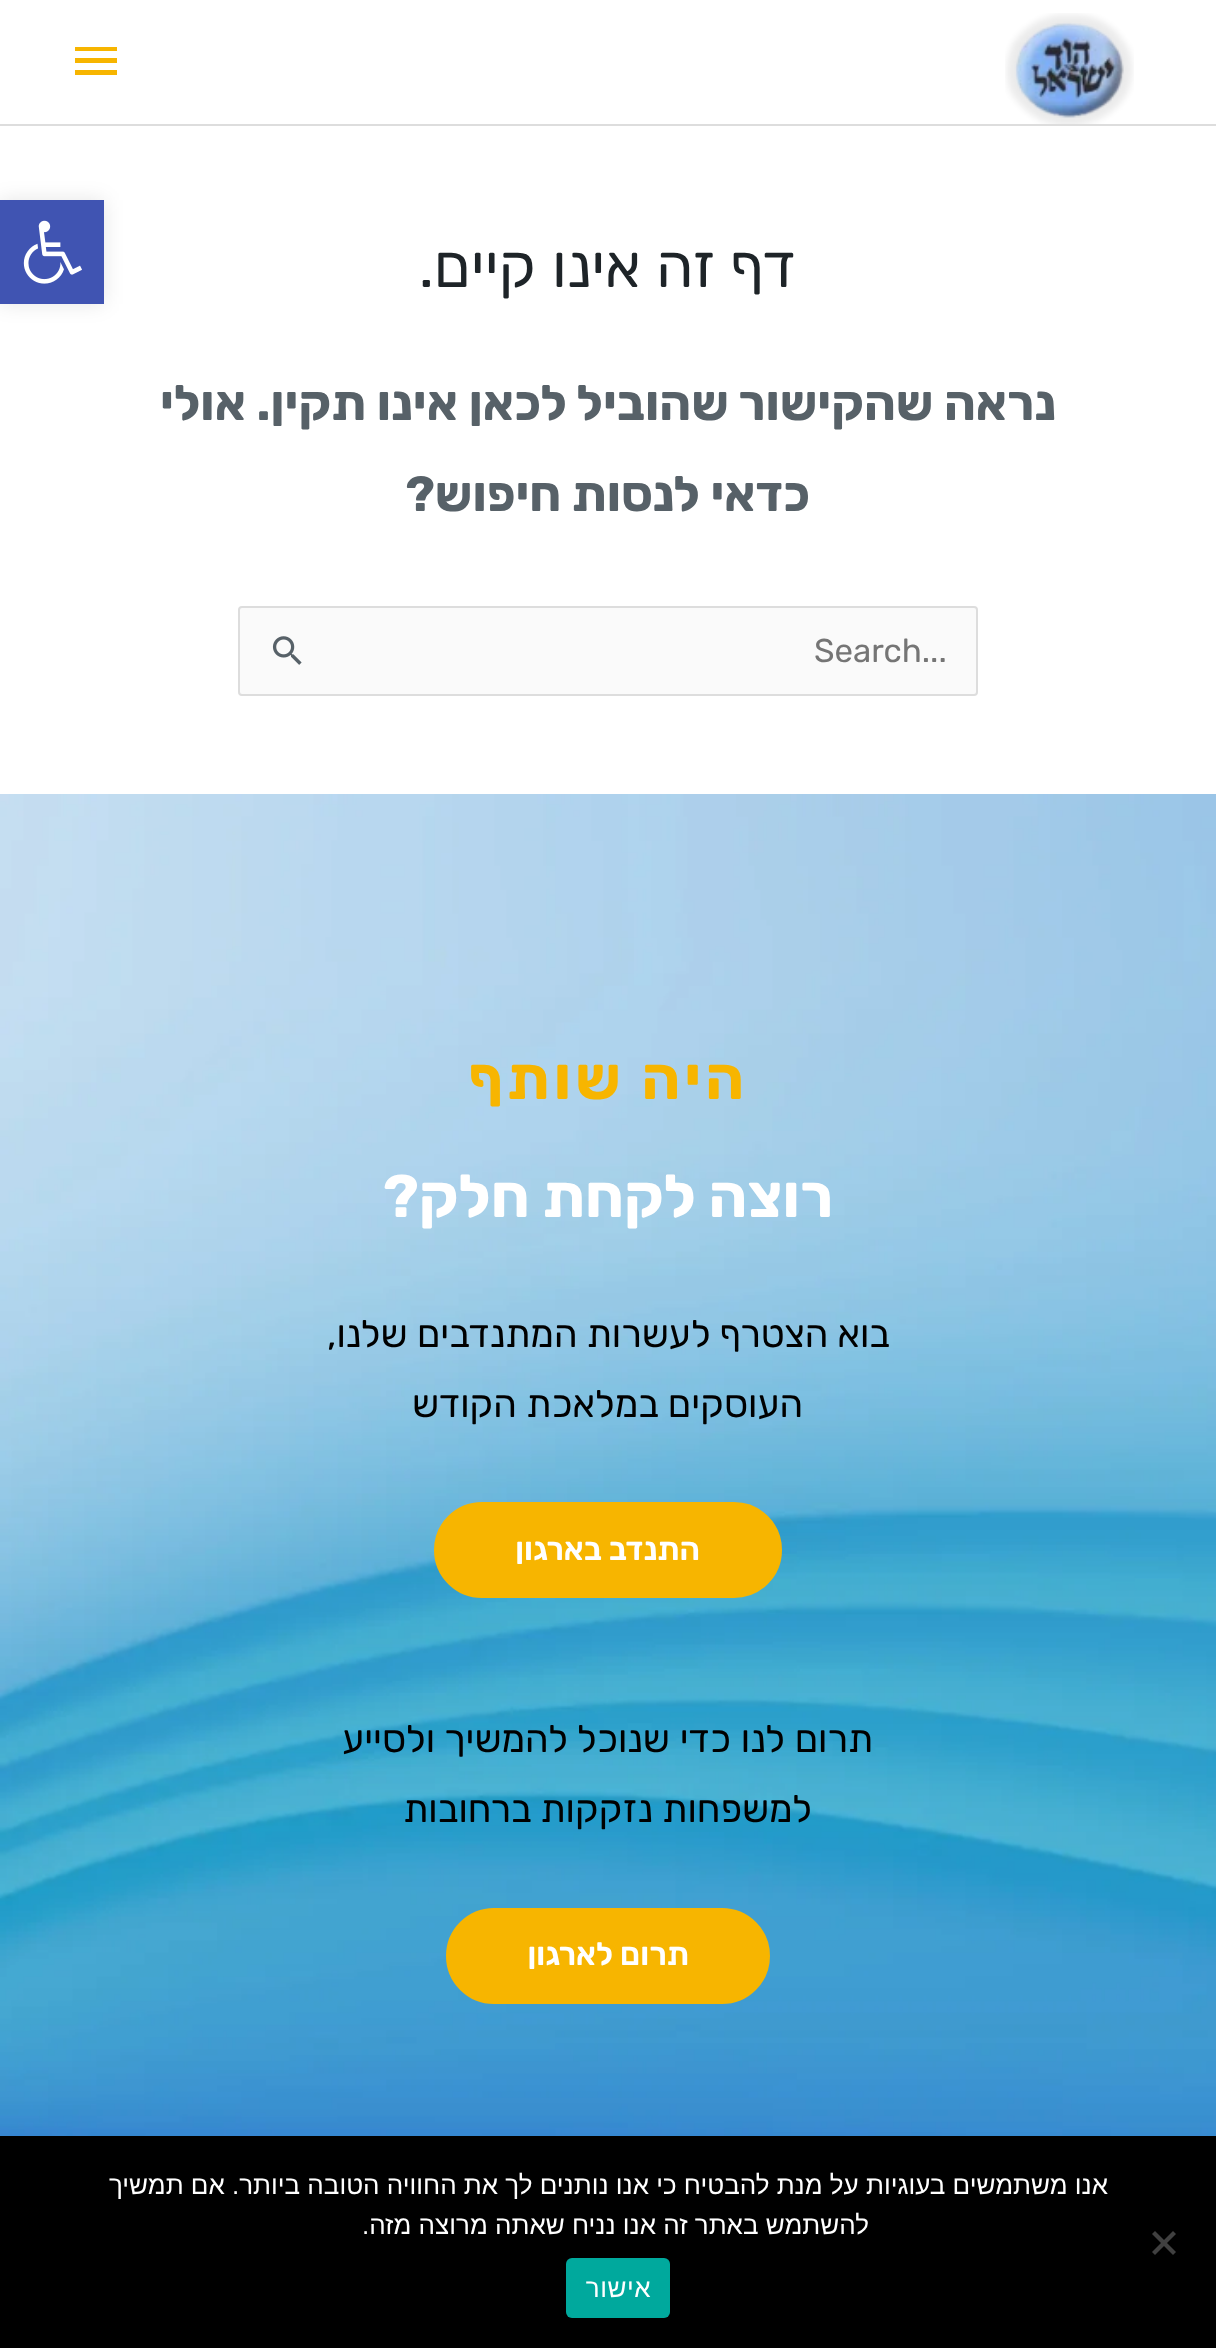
<svg xmlns="http://www.w3.org/2000/svg" width="1216" height="2348">
<rect width="100%" height="100%" fill="#fff"/>
<rect y="124" width="1216" height="2" fill="#ddd"/>
<image x="1005" y="13" width="129" height="111" href="media/1.png"/>
<path d="M75 47h42v4h-42zm0 16v-5h42v5zm0 12v-5h42v5z" fill="#f7b500"/>
<text x="796" y="287" word-spacing="1" style="font-family:Rubik;font-size:60px;direction:rtl;fill:#1e2428">דף זה אינו קיים.</text>
<text x="1056" y="420" word-spacing="0.25" style="font-family:Rubik;font-size:49.25px;font-weight:bold;direction:rtl;fill:#576168">נראה שהקישור שהוביל לכאן אינו תקין. אולי</text>
<text x="810" y="511" style="font-family:Rubik;font-size:49.25px;font-weight:bold;direction:rtl;fill:#576168">כדאי לנסות חיפוש?</text>
<rect x="239" y="607" width="738" height="88" rx="3" fill="#fafafa" stroke="#ddd" stroke-width="2"/>
<text x="814" y="662" style="font-family:Rubik;font-size:33px;fill:#757575">Search...</text>
<image x="272" y="636" width="30" height="29" href="media/2.png"/>
<image x="0" y="794" width="1216" height="1342" href="media/3.png"/>
<text x="748" y="1099" style="font-family:Rubik;font-size:60px;font-weight:bold;letter-spacing:4px;direction:rtl;fill:#f7b500">היה שותף</text>
<text x="833" y="1217" style="font-family:Rubik;font-size:60px;font-weight:bold;direction:rtl;fill:#fff">רוצה לקחת חלק?</text>
<text x="890" y="1347" style="font-family:Rubik;font-size:38px;direction:rtl;fill:#000">בוא הצטרף לעשרות המתנדבים שלנו,</text>
<text x="803" y="1417" style="font-family:Rubik;font-size:38px;direction:rtl;fill:#000">העוסקים במלאכת הקודש</text>
<rect x="435" y="1503" width="346" height="94" rx="47" fill="#f7b500" stroke="#f7b500" stroke-width="2"/>
<text x="700" y="1560" style="font-family:Rubik;font-size:32px;font-weight:600;direction:rtl;fill:#fff">התנדב בארגון</text>
<text x="873" y="1752" word-spacing="0.5" style="font-family:Rubik;font-size:38px;direction:rtl;fill:#000">תרום לנו כדי שנוכל להמשיך ולסייע</text>
<text x="812" y="1822" style="font-family:Rubik;font-size:38px;direction:rtl;fill:#000">למשפחות נזקקות ברחובות</text>
<rect x="447" y="1909" width="322" height="94" rx="47" fill="#f7b500" stroke="#f7b500" stroke-width="2"/>
<text x="689" y="1965" style="font-family:Rubik;font-size:32px;font-weight:600;direction:rtl;fill:#fff">תרום לארגון</text>
<rect y="200" width="104" height="104" fill="#0000001a" filter="blur(10px)"/>
<rect y="200" width="104" height="104" fill="#4054b2"/>
<image x="23" y="220" width="59" height="64" href="media/4.png"/>
<rect y="2136" width="1216" height="212" fill="#000"/>
<text x="1108" y="2194" style="font-family:Liberation Sans;font-size:26px;direction:rtl;fill:#fff">אנו משתמשים בעוגיות על מנת להבטיח כי אנו נותנים לך את החוויה הטובה ביותר. אם תמשיך</text>
<text x="869" y="2234" style="font-family:Liberation Sans;font-size:26px;direction:rtl;fill:#fff">להשתמש באתר זה אנו נניח שאתה מרוצה מזה.</text>
<path d="M1173 2231l3 3l-21 21l-3-3z" fill="#404040"/>
<path d="M1152 2234l3-3l21 21l-3 3z" fill="#404040"/>
<rect x="566" y="2258" width="104" height="60" rx="6" fill="#00a99d"/>
<text x="651" y="2297" style="font-family:Liberation Sans;font-size:26px;letter-spacing:0.5px;direction:rtl;fill:#fff">אישור</text>
</svg>
